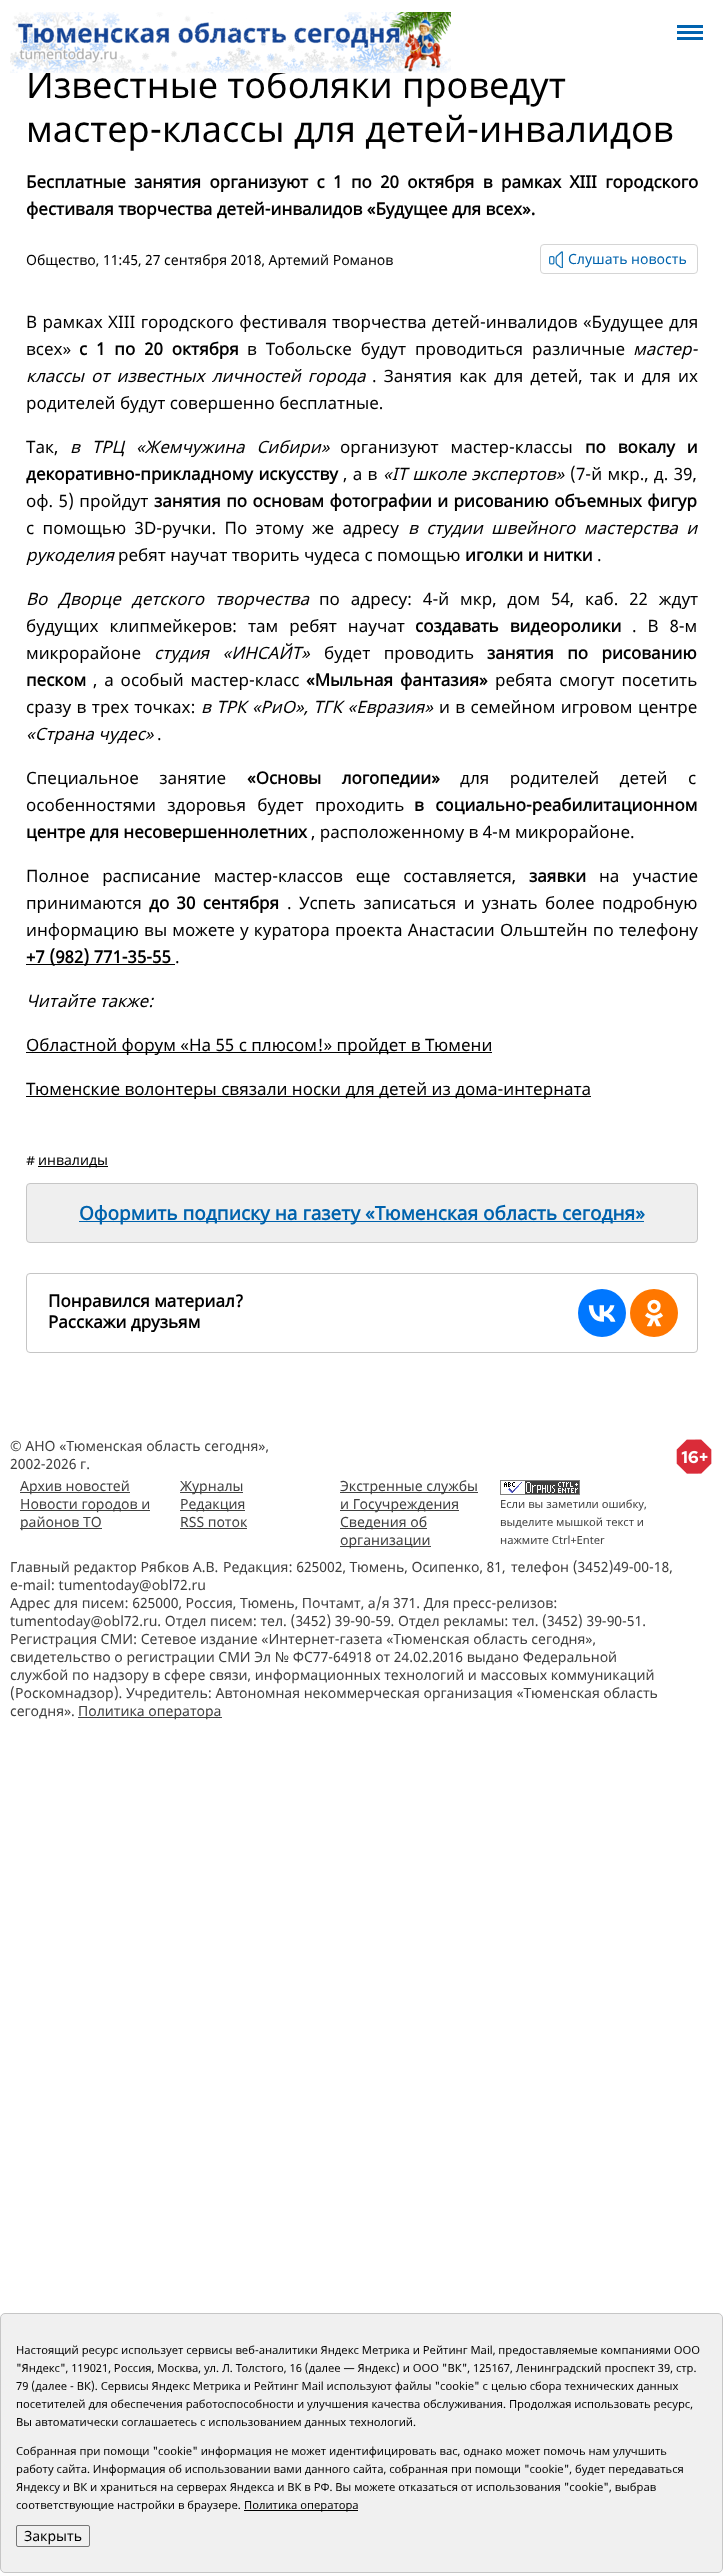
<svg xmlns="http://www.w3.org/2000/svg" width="723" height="2573">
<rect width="100%" height="100%" fill="#fff"/>
<text x="26" y="98" style="font-family:Noto Sans;font-size:36px;fill:#000">Известные тоболяки проведут</text>
<image x="10" y="12" width="441" height="61" href="media/1.png"/>
<image x="677" y="25" width="26" height="15" href="media/2.png"/>
<text x="26" y="142" style="font-family:Noto Sans;font-size:36px;fill:#000">мастер-классы для детей-инвалидов</text>
<text x="26" y="188" word-spacing="4" style="font-family:Noto Sans;font-size:17px;font-weight:bold;fill:#000">Бесплатные занятия организуют с 1 по 20 октября в рамках XIII городского</text>
<text x="26" y="215" style="font-family:Noto Sans;font-size:17px;font-weight:bold;fill:#000">фестиваля творчества детей-инвалидов «Будущее для всех».</text>
<text x="26" y="265" style="font-family:Noto Sans;font-size:14px;fill:#000">Общество, 11:45, 27 сентября 2018, Артемий Романов</text>
<rect x="540.5" y="244.5" width="157" height="29" rx="3.5" fill="none" stroke="#d5d5d5"/>
<image x="549" y="251" width="14" height="17" href="media/3.png"/>
<text x="568" y="264" style="font-family:Noto Sans;font-size:14px;fill:#0063ad">Слушать новость</text>
<text x="26" y="328" word-spacing="1" style="font-family:Noto Sans;font-size:17px;fill:#000">В рамках XIII городского фестиваля творчества детей-инвалидов «Будущее для</text>
<text x="26" y="355" style="font-family:Noto Sans;font-size:17px;fill:#000">всех»</text>
<text x="79" y="355" word-spacing="4.5" style="font-family:Noto Sans;font-size:17px;font-weight:bold;fill:#000">с 1 по 20 октября</text>
<text x="247" y="355" word-spacing="4.5" style="font-family:Noto Sans;font-size:17px;fill:#000">в Тобольске будут проводиться различные</text>
<text x="633" y="355" style="font-family:Noto Sans;font-size:17px;font-style:italic;fill:#000">мастер-</text>
<text x="26" y="382" word-spacing="2.75" style="font-family:Noto Sans;font-size:17px;font-style:italic;fill:#000">классы от известных личностей города</text>
<text x="372" y="382" word-spacing="2.75" style="font-family:Noto Sans;font-size:17px;fill:#000">. Занятия как для детей, так и для их</text>
<text x="26" y="409" style="font-family:Noto Sans;font-size:17px;fill:#000">родителей будут совершенно бесплатные.</text>
<text x="26" y="453" style="font-family:Noto Sans;font-size:17px;fill:#000">Так,</text>
<text x="70" y="453" word-spacing="7.5" style="font-family:Noto Sans;font-size:17px;font-style:italic;fill:#000">в ТРЦ «Жемчужина Сибири»</text>
<text x="340" y="453" word-spacing="7.5" style="font-family:Noto Sans;font-size:17px;fill:#000">организуют мастер-классы</text>
<text x="585" y="453" word-spacing="7.5" style="font-family:Noto Sans;font-size:17px;font-weight:bold;fill:#000">по вокалу и</text>
<text x="26" y="480" word-spacing="1" style="font-family:Noto Sans;font-size:17px;font-weight:bold;fill:#000">декоративно-прикладному искусству</text>
<text x="343" y="480" word-spacing="1" style="font-family:Noto Sans;font-size:17px;fill:#000">, а в</text>
<text x="383" y="480" word-spacing="1" style="font-family:Noto Sans;font-size:17px;font-style:italic;fill:#000">«IT школе экспертов»</text>
<text x="570" y="480" word-spacing="1" style="font-family:Noto Sans;font-size:17px;fill:#000">(7-й мкр., д. 39,</text>
<text x="26" y="507" word-spacing="1" style="font-family:Noto Sans;font-size:17px;fill:#000">оф. 5) пройдут</text>
<text x="154" y="507" word-spacing="1" style="font-family:Noto Sans;font-size:17px;font-weight:bold;fill:#000">занятия по основам фотографии и рисованию объемных фигур</text>
<text x="26" y="534" word-spacing="4" style="font-family:Noto Sans;font-size:17px;fill:#000">с помощью 3D-ручки. По этому же адресу</text>
<text x="408" y="534" word-spacing="4" style="font-family:Noto Sans;font-size:17px;font-style:italic;fill:#000">в студии швейного мастерства и</text>
<text x="26" y="561" style="font-family:Noto Sans;font-size:17px;font-style:italic;fill:#000">рукоделия</text>
<text x="118" y="561" style="font-family:Noto Sans;font-size:17px;fill:#000">ребят научат творить чудеса с помощью</text>
<text x="465" y="561" style="font-family:Noto Sans;font-size:17px;font-weight:bold;fill:#000">иголки и нитки</text>
<text x="597" y="561" style="font-family:Noto Sans;font-size:17px;fill:#000">.</text>
<text x="26" y="605" word-spacing="6.5" style="font-family:Noto Sans;font-size:17px;font-style:italic;fill:#000">Во Дворце детского творчества</text>
<text x="319" y="605" word-spacing="6.5" style="font-family:Noto Sans;font-size:17px;fill:#000">по адресу: 4-й мкр, дом 54, каб. 22 ждут</text>
<text x="26" y="632" word-spacing="6.5" style="font-family:Noto Sans;font-size:17px;fill:#000">будущих клипмейкеров: там ребят научат</text>
<text x="415" y="632" word-spacing="6.5" style="font-family:Noto Sans;font-size:17px;font-weight:bold;fill:#000">создавать видеоролики</text>
<text x="632" y="632" word-spacing="6.5" style="font-family:Noto Sans;font-size:17px;fill:#000">. В 8-м</text>
<text x="26" y="659" style="font-family:Noto Sans;font-size:17px;fill:#000">микрорайоне</text>
<text x="154" y="659" word-spacing="9" style="font-family:Noto Sans;font-size:17px;font-style:italic;fill:#000">студия «ИНСАЙТ»</text>
<text x="324" y="659" word-spacing="9" style="font-family:Noto Sans;font-size:17px;fill:#000">будет проводить</text>
<text x="487" y="659" word-spacing="9" style="font-family:Noto Sans;font-size:17px;font-weight:bold;fill:#000">занятия по рисованию</text>
<text x="26" y="686" style="font-family:Noto Sans;font-size:17px;font-weight:bold;fill:#000">песком</text>
<text x="93" y="686" word-spacing="2.5" style="font-family:Noto Sans;font-size:17px;fill:#000">, а особый мастер-класс</text>
<text x="306" y="686" word-spacing="2.5" style="font-family:Noto Sans;font-size:17px;font-weight:bold;fill:#000">«Мыльная фантазия»</text>
<text x="495" y="686" word-spacing="2.5" style="font-family:Noto Sans;font-size:17px;fill:#000">ребята смогут посетить</text>
<text x="26" y="713" word-spacing="1" style="font-family:Noto Sans;font-size:17px;fill:#000">сразу в трех точках:</text>
<text x="201" y="713" word-spacing="1" style="font-family:Noto Sans;font-size:17px;font-style:italic;fill:#000">в ТРК «РиО», ТГК «Евразия»</text>
<text x="439" y="713" word-spacing="1" style="font-family:Noto Sans;font-size:17px;fill:#000">и в семейном игровом центре</text>
<text x="26" y="740" style="font-family:Noto Sans;font-size:17px;font-style:italic;fill:#000">«Страна чудес»</text>
<text x="157" y="740" style="font-family:Noto Sans;font-size:17px;fill:#000">.</text>
<text x="26" y="784" word-spacing="16" style="font-family:Noto Sans;font-size:17px;fill:#000">Специальное занятие</text>
<text x="247" y="784" word-spacing="16" style="font-family:Noto Sans;font-size:17px;font-weight:bold;fill:#000">«Основы логопедии»</text>
<text x="460" y="784" word-spacing="16" style="font-family:Noto Sans;font-size:17px;fill:#000">для родителей детей с</text>
<text x="26" y="811" word-spacing="7" style="font-family:Noto Sans;font-size:17px;fill:#000">особенностями здоровья будет проходить</text>
<text x="414" y="811" word-spacing="7" style="font-family:Noto Sans;font-size:17px;font-weight:bold;fill:#000">в социально-реабилитационном</text>
<text x="26" y="838" style="font-family:Noto Sans;font-size:17px;font-weight:bold;fill:#000">центре для несовершеннолетних</text>
<text x="311" y="838" style="font-family:Noto Sans;font-size:17px;fill:#000">, расположенному в 4-м микрорайоне.</text>
<text x="26" y="882" word-spacing="8.5" style="font-family:Noto Sans;font-size:17px;fill:#000">Полное расписание мастер-классов еще составляется,</text>
<text x="529" y="882" style="font-family:Noto Sans;font-size:17px;font-weight:bold;fill:#000">заявки</text>
<text x="599" y="882" word-spacing="9" style="font-family:Noto Sans;font-size:17px;fill:#000">на участие</text>
<text x="26" y="909" style="font-family:Noto Sans;font-size:17px;fill:#000">принимаются</text>
<text x="149" y="909" word-spacing="3" style="font-family:Noto Sans;font-size:17px;font-weight:bold;fill:#000">до 30 сентября</text>
<text x="287" y="909" word-spacing="3" style="font-family:Noto Sans;font-size:17px;fill:#000">. Успеть записаться и узнать более подробную</text>
<text x="26" y="936" word-spacing="0.75" style="font-family:Noto Sans;font-size:17px;fill:#000">информацию вы можете у куратора проекта Анастасии Ольштейн по телефону</text>
<rect x="26" y="964" width="149" height="1" fill="#000"/>
<text x="26" y="963" style="font-family:Noto Sans;font-size:17px;font-weight:bold;fill:#000">+7 (982) 771-35-55</text>
<text x="175" y="963" style="font-family:Noto Sans;font-size:17px;fill:#000">.</text>
<text x="26" y="1007" style="font-family:Noto Sans;font-size:17px;font-style:italic;fill:#000">Читайте также:</text>
<rect x="26" y="1052" width="466" height="1" fill="#000"/>
<text x="26" y="1051" style="font-family:Noto Sans;font-size:17px;fill:#000">Областной форум «На 55 с плюсом!» пройдет в Тюмени</text>
<rect x="26" y="1096" width="565" height="1" fill="#000"/>
<text x="26" y="1095" style="font-family:Noto Sans;font-size:17px;fill:#000">Тюменские волонтеры связали носки для детей из дома-интерната</text>
<text x="26" y="1165" style="font-family:Noto Sans;font-size:14px;fill:#000">#</text>
<rect x="38" y="1166" width="70" height="1" fill="#000"/>
<text x="38" y="1165" style="font-family:Noto Sans;font-size:14px;fill:#000">инвалиды</text>
<rect x="26.5" y="1183.5" width="671" height="59" rx="3.5" fill="#efefef" stroke="#c6c6c6"/>
<rect x="79" y="1221" width="565" height="1" fill="#0063ad"/>
<text x="79" y="1220" style="font-family:Noto Sans;font-size:19px;font-weight:bold;fill:#0063ad">Оформить подписку на газету «Тюменская область сегодня»</text>
<rect x="26.5" y="1273.5" width="671" height="79" rx="3.5" fill="none" stroke="#c5c5c5"/>
<text x="48" y="1307" style="font-family:Noto Sans;font-size:17px;font-weight:bold;fill:#000">Понравился материал?</text>
<text x="48" y="1328" style="font-family:Noto Sans;font-size:17px;font-weight:bold;fill:#000">Расскажи друзьям</text>
<circle cx="602" cy="1313" r="24" fill="#07f"/>
<image x="588" y="1305" width="28" height="17" href="media/4.png"/>
<circle cx="654" cy="1313" r="24" fill="#f70"/>
<image x="645" y="1299" width="18" height="28" href="media/5.png"/>
<text x="10" y="1451" style="font-family:Noto Sans;font-size:14px;fill:#404040">© АНО «Тюменская область сегодня»,</text>
<text x="10" y="1469" style="font-family:Noto Sans;font-size:14px;fill:#404040">2002-2026 г.</text>
<image x="676" y="1439" width="36" height="35" href="media/6.png"/>
<rect x="20" y="1492" width="110" height="1" fill="#404040"/>
<text x="20" y="1491" style="font-family:Noto Sans;font-size:14px;fill:#404040">Архив новостей</text>
<rect x="20" y="1510" width="130" height="1" fill="#404040"/>
<text x="20" y="1509" style="font-family:Noto Sans;font-size:14px;fill:#404040">Новости городов и</text>
<rect x="20" y="1528" width="82" height="1" fill="#404040"/>
<text x="20" y="1527" style="font-family:Noto Sans;font-size:14px;fill:#404040">районов ТО</text>
<rect x="180" y="1492" width="63" height="1" fill="#404040"/>
<text x="180" y="1491" style="font-family:Noto Sans;font-size:14px;fill:#404040">Журналы</text>
<rect x="180" y="1510" width="65" height="1" fill="#404040"/>
<text x="180" y="1509" style="font-family:Noto Sans;font-size:14px;fill:#404040">Редакция</text>
<text x="180" y="1527" style="font-family:Noto Sans;font-size:14px;fill:#404040">RSS поток</text>
<rect x="180" y="1528" width="67" height="1" fill="#404040"/>
<rect x="340" y="1492" width="138" height="1" fill="#404040"/>
<text x="340" y="1491" style="font-family:Noto Sans;font-size:14px;fill:#404040">Экстренные службы</text>
<rect x="340" y="1510" width="119" height="1" fill="#404040"/>
<text x="340" y="1509" style="font-family:Noto Sans;font-size:14px;fill:#404040">и Госучреждения</text>
<rect x="340" y="1528" width="87" height="1" fill="#404040"/>
<text x="340" y="1527" style="font-family:Noto Sans;font-size:14px;fill:#404040">Сведения об</text>
<rect x="340" y="1546" width="91" height="1" fill="#404040"/>
<text x="340" y="1545" style="font-family:Noto Sans;font-size:14px;fill:#404040">организации</text>
<image x="500" y="1480" width="80" height="15" href="media/7.png"/>
<text x="500" y="1508" style="font-family:Noto Sans;font-size:11.2px;fill:#404040">Если вы заметили ошибку,</text>
<text x="500" y="1526" style="font-family:Noto Sans;font-size:11.2px;fill:#404040">выделите мышкой текст и</text>
<text x="500" y="1544" style="font-family:Noto Sans;font-size:11.2px;fill:#404040">нажмите Ctrl+Enter</text>
<text x="10" y="1572" style="font-family:Noto Sans;font-size:14px;fill:#404040">Главный редактор Рябков А.В.</text>
<text x="223" y="1572" style="font-family:Noto Sans;font-size:14px;fill:#404040">Редакция: 625002, Тюмень, Осипенко, 81,</text>
<text x="511" y="1572" style="font-family:Noto Sans;font-size:14px;fill:#404040">телефон (3452)49-00-18,</text>
<text x="10" y="1590" style="font-family:Noto Sans;font-size:14px;fill:#404040">e-mail: tumentoday@obl72.ru</text>
<text x="10" y="1608" style="font-family:Noto Sans;font-size:14px;fill:#404040">Адрес для писем: 625000, Россия, Тюмень, Почтамт, а/я 371. Для пресс-релизов:</text>
<text x="10" y="1626" style="font-family:Noto Sans;font-size:14px;fill:#404040">tumentoday@obl72.ru. Отдел писем: тел. (3452) 39-90-59. Отдел рекламы: тел. (3452) 39-90-51.</text>
<text x="10" y="1644" style="font-family:Noto Sans;font-size:14px;fill:#404040">Регистрация СМИ: Сетевое издание «Интернет-газета «Тюменская область сегодня»,</text>
<text x="10" y="1662" style="font-family:Noto Sans;font-size:14px;fill:#404040">свидетельство о регистрации СМИ Эл № ФС77-64918 от 24.02.2016 выдано Федеральной</text>
<text x="10" y="1680" style="font-family:Noto Sans;font-size:14px;fill:#404040">службой по надзору в сфере связи, информационных технологий и массовых коммуникаций</text>
<text x="10" y="1698" style="font-family:Noto Sans;font-size:14px;fill:#404040">(Роскомнадзор). Учредитель: Автономная некоммерческая организация «Тюменская область</text>
<text x="10" y="1716" style="font-family:Noto Sans;font-size:14px;fill:#404040">сегодня».</text>
<rect x="78" y="1717" width="144" height="1" fill="#404040"/>
<text x="78" y="1716" style="font-family:Noto Sans;font-size:14px;fill:#404040">Политика оператора</text>
<rect x="0.5" y="2313.5" width="722" height="259" rx="4.5" fill="#f0f0f0" stroke="#c6c6c6"/>
<text x="16" y="2354" style="font-family:Noto Sans;font-size:11.2px;fill:#000">Настоящий ресурс использует сервисы веб-аналитики Яндекс Метрика и Рейтинг Mail, предоставляемые компаниями ООО</text>
<text x="16" y="2372" style="font-family:Noto Sans;font-size:11.2px;fill:#000">"Яндекс", 119021, Россия, Москва, ул. Л. Толстого, 16 (далее — Яндекс) и ООО "ВК", 125167, Ленинградский проспект 39, стр.</text>
<text x="16" y="2390" style="font-family:Noto Sans;font-size:11.2px;fill:#000">79 (далее - ВК). Сервисы Яндекс Метрика и Рейтинг Mail используют файлы "cookie" с целью сбора технических данных</text>
<text x="16" y="2408" style="font-family:Noto Sans;font-size:11.2px;fill:#000">посетителей для обеспечения работоспособности и улучшения качества обслуживания. Продолжая использовать ресурс,</text>
<text x="16" y="2426" style="font-family:Noto Sans;font-size:11.2px;fill:#000">Вы автоматически соглашаетесь с использованием данных технологий.</text>
<text x="16" y="2455" style="font-family:Noto Sans;font-size:11.2px;fill:#000">Собранная при помощи "cookie" информация не может идентифицировать вас, однако может помочь нам улучшить</text>
<text x="16" y="2473" style="font-family:Noto Sans;font-size:11.2px;fill:#000">работу сайта. Информация об использовании вами данного сайта, собранная при помощи "cookie", будет передаваться</text>
<text x="16" y="2491" style="font-family:Noto Sans;font-size:11.2px;fill:#000">Яндексу и ВК и храниться на серверах Яндекса и ВК в РФ. Вы можете отказаться от использования "cookie", выбрав</text>
<text x="16" y="2509" style="font-family:Noto Sans;font-size:11.2px;fill:#000">соответствующие настройки в браузере.</text>
<rect x="244" y="2510" width="114" height="1" fill="#000"/>
<text x="244" y="2509" style="font-family:Noto Sans;font-size:11.2px;fill:#000">Политика оператора</text>
<rect x="16.5" y="2525.5" width="73" height="21" rx="1.5" fill="none" stroke="#767676"/>
<text x="24" y="2541" style="font-family:Noto Sans;font-size:14px;fill:#000">Закрыть</text>
</svg>
